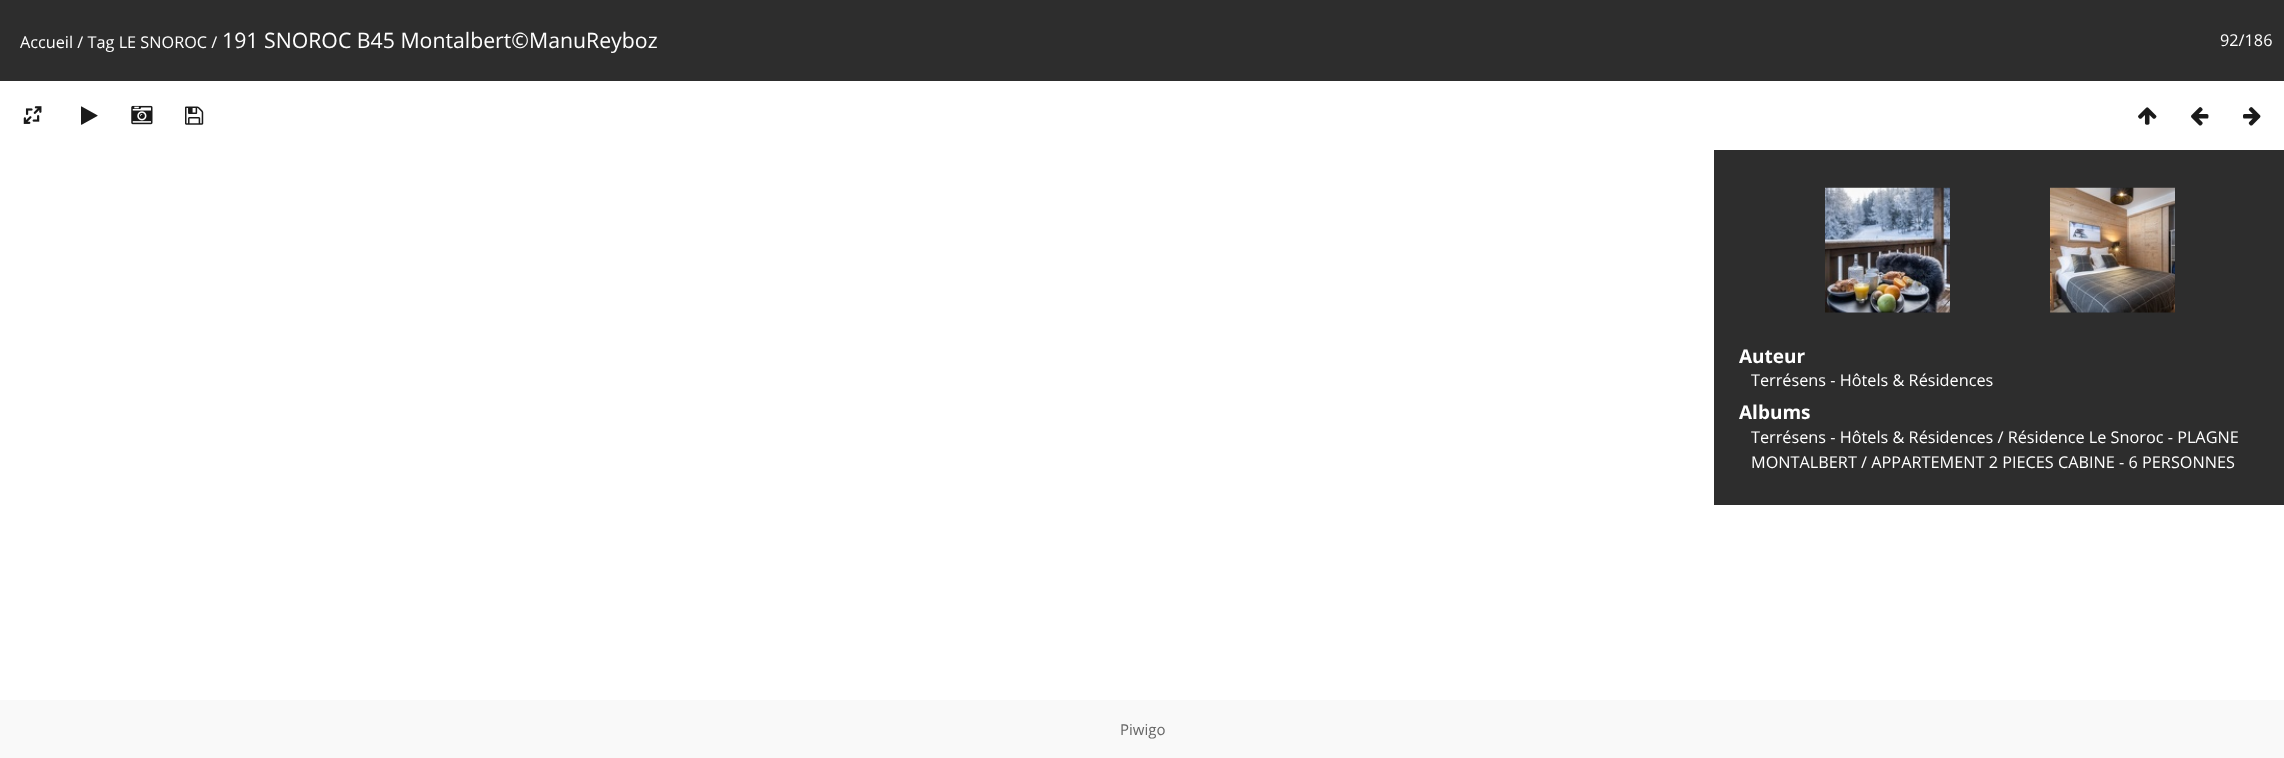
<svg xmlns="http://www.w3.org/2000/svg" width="2284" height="758">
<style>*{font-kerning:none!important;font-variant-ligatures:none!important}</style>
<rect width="100%" height="100%" fill="#fff"/>
<rect width="2284" height="81" fill="#2d2d2d"/>
<text x="20" y="48" style="font-family:Open Sans;font-size:16.25px;fill:#fff">Accueil / Tag LE SNOROC /</text>
<text x="222" y="48" style="font-family:Open Sans;font-size:21.25px;fill:#fff">191 SNOROC B45 Montalbert©ManuReyboz</text>
<text x="2220" y="46" style="font-family:Open Sans;font-size:16.25px;fill:#fff">92/186</text>
<image x="23" y="106" width="19" height="18" href="media/1.png"/>
<text x="81" y="123" style="font-family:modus;font-size:21.25px;fill:#1a1a1a">▶</text>
<image x="131" y="105" width="22" height="20" href="media/2.png"/>
<text x="185" y="123" style="font-family:modus;font-size:21.25px;fill:#1a1a1a">💾</text>
<text x="2138" y="123" style="font-family:modus;font-size:21.25px;fill:#1a1a1a">↑</text>
<text x="2191" y="123" style="font-family:modus;font-size:21.25px;fill:#1a1a1a">←</text>
<text x="2243" y="123" style="font-family:modus;font-size:21.25px;fill:#1a1a1a">→</text>
<rect x="1714" y="150" width="570" height="355" fill="#2d2d2d"/>
<image x="1825" y="187" width="125" height="126" href="media/3.png"/>
<image x="2050" y="187" width="125" height="126" href="media/4.png"/>
<text x="1739" y="363" style="font-family:Open Sans;font-size:19px;font-weight:bold;fill:#fff">Auteur</text>
<text x="1751" y="386" style="font-family:Open Sans;font-size:16.25px;fill:#fff">Terrésens - Hôtels &amp; Résidences</text>
<text x="1739" y="419" style="font-family:Open Sans;font-size:19px;font-weight:bold;fill:#fff">Albums</text>
<text x="1751" y="443" style="font-family:Open Sans;font-size:16.25px;fill:#fff">Terrésens - Hôtels &amp; Résidences / Résidence Le Snoroc - PLAGNE</text>
<text x="1751" y="468" style="font-family:Open Sans;font-size:16.25px;fill:#fff">MONTALBERT / APPARTEMENT 2 PIECES CABINE - 6 PERSONNES</text>
<rect y="700" width="2284" height="58" fill="#f9f9f9"/>
<text x="1120" y="735" style="font-family:Open Sans;font-size:15px;fill:#666">Piwigo</text>
</svg>
